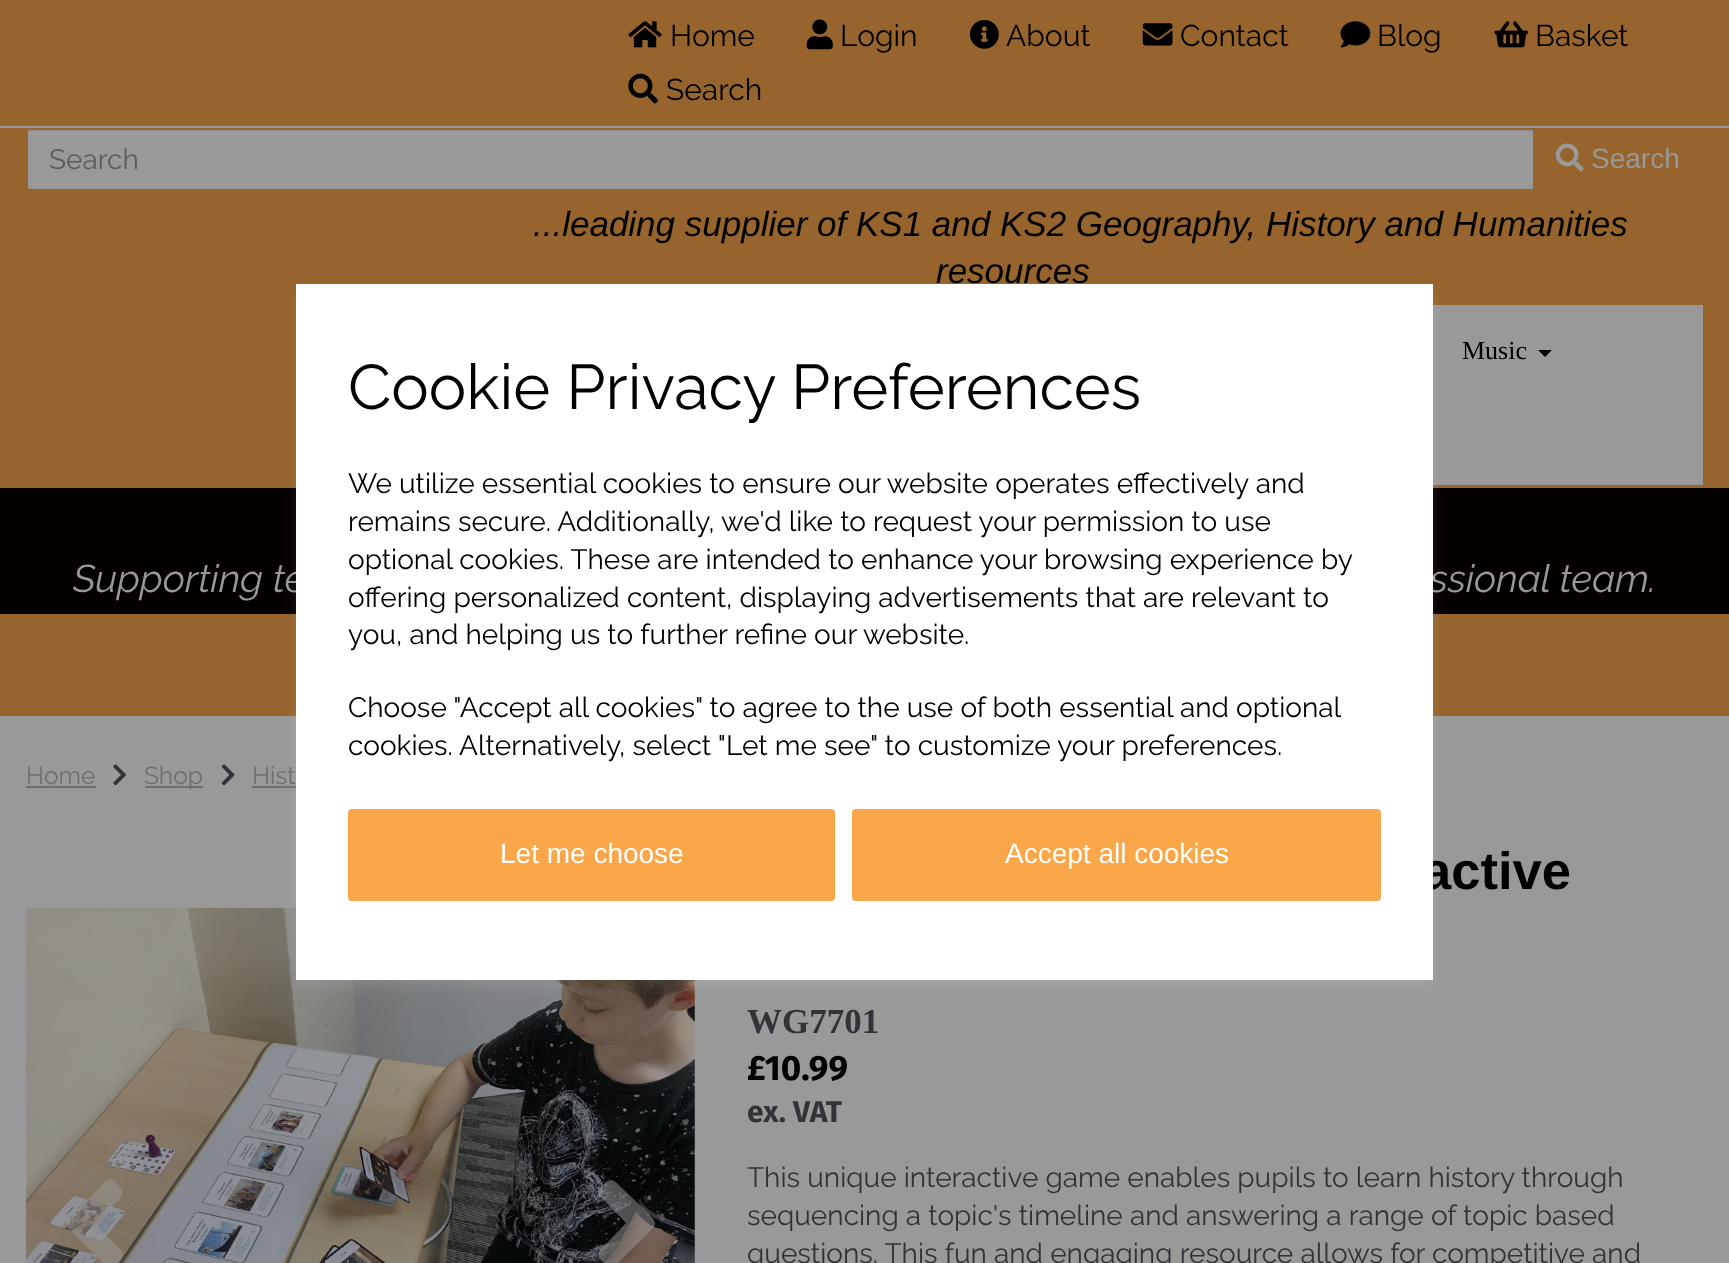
<svg xmlns="http://www.w3.org/2000/svg" width="1729" height="1263">
<rect width="100%" height="100%" fill="#999"/>
<rect width="1729" height="126" fill="#96642c"/>
<image x="628" y="21" width="34" height="27" href="media/1.png"/>
<text x="670" y="46" style="font-family:Raleway;font-size:30px;fill:#000">Home</text>
<image x="806" y="19" width="27" height="31" href="media/2.png"/>
<text x="840" y="46" style="font-family:Raleway;font-size:30px;fill:#000">Login</text>
<image x="970" y="19" width="29" height="30" href="media/3.png"/>
<text x="1006" y="46" style="font-family:Raleway;font-size:30px;fill:#000">About</text>
<image x="1142" y="23" width="31" height="23" href="media/4.png"/>
<text x="1180" y="46" style="font-family:Raleway;font-size:30px;fill:#000">Contact</text>
<image x="1340" y="21" width="31" height="27" href="media/5.png"/>
<text x="1377" y="46" style="font-family:Raleway;font-size:30px;fill:#000">Blog</text>
<image x="1494" y="21" width="34" height="27" href="media/6.png"/>
<text x="1535" y="46" style="font-family:Raleway;font-size:30px;fill:#000">Basket</text>
<image x="628" y="73" width="30" height="31" href="media/7.png"/>
<text x="666" y="100" style="font-family:Raleway;font-size:30px;fill:#000">Search</text>
<rect y="128" width="1729" height="360" fill="#96642c"/>
<path d="M30 128h1505v63h-1505c-2 0-4-2-4-4v-55c0-2 2-4 4-4z" fill="#999"/>
<path d="M30 131h1503v-1h-1503c-1 0-2 1-2 2v1c0-1 1-2 2-2z" fill="#8e8e8e"/>
<path d="M30 129h1504v61h-1504c-1.5 0-3-1.5-3-3v-55c0-1.5 1.5-3 3-3z" fill="none" stroke="#96642c" stroke-width="2"/>
<text x="49" y="169" style="font-family:Raleway;font-size:28px;fill:#5c5c5c">Search</text>
<image x="1555" y="143" width="29" height="29" href="media/8.png"/>
<text x="1591" y="168" style="font-family:Liberation Sans;font-size:28px;fill:#999">Search</text>
<text x="533" y="236" style="font-family:Liberation Sans;font-size:35px;font-style:italic;fill:#000">...leading supplier of KS1 and KS2 Geography, History and Humanities</text>
<text x="936" y="283" style="font-family:Liberation Sans;font-size:35px;font-style:italic;fill:#000">resources</text>
<rect x="1433" y="305" width="270" height="180" fill="#999"/>
<text x="1462" y="359" style="font-family:Liberation Serif;font-size:26px;fill:#000">Music</text>
<path d="M1538 350h14l-7 7z" fill="#040404"/>
<rect y="488" width="1729" height="126" fill="#050000"/>
<text x="73" y="592" style="font-family:Raleway;font-size:38.5px;font-weight:100;font-style:italic;fill:#999">Supporting te</text>
<text x="1430" y="592" style="font-family:Raleway;font-size:38.5px;font-weight:100;font-style:italic;fill:#999">ssional team.</text>
<rect y="614" width="1729" height="102" fill="#96642c"/>
<rect x="252" y="786" width="44" height="2" fill="#6b7173"/>
<image x="26" y="907" width="669" height="356" href="media/11.png"/>
<rect x="296" y="291" width="1137" height="696" fill="#ffffff1a" filter="blur(7px)"/>
<text x="1422" y="889" style="font-family:Liberation Sans;font-size:52.5px;font-weight:bold;fill:#000">active</text>
<rect x="296" y="284" width="1137" height="696" fill="#fff"/>
<text x="348" y="409" style="font-family:Raleway;font-size:63px;fill:#000">Cookie Privacy Preferences</text>
<text x="348" y="493" style="font-family:Raleway;font-size:28px;fill:#000">We utilize essential cookies to ensure our website operates effectively and</text>
<text x="348" y="531" style="font-family:Raleway;font-size:28px;fill:#000">remains secure. Additionally, we'd like to request your permission to use</text>
<text x="348" y="569" style="font-family:Raleway;font-size:28px;fill:#000">optional cookies. These are intended to enhance your browsing experience by</text>
<text x="348" y="607" style="font-family:Raleway;font-size:28px;fill:#000">offering personalized content, displaying advertisements that are relevant to</text>
<text x="348" y="644" style="font-family:Raleway;font-size:28px;fill:#000">you, and helping us to further refine our website.</text>
<text x="348" y="717" style="font-family:Raleway;font-size:28px;fill:#000">Choose "Accept all cookies" to agree to the use of both essential and optional</text>
<text x="348" y="755" style="font-family:Raleway;font-size:28px;fill:#000">cookies. Alternatively, select "Let me see" to customize your preferences.</text>
<rect x="348" y="809" width="487" height="92" rx="4" fill="#faa74a"/>
<text x="500" y="863" style="font-family:Liberation Sans;font-size:28px;fill:#fff">Let me choose</text>
<rect x="852" y="809" width="529" height="92" rx="4" fill="#faa74a"/>
<text x="1005" y="863" style="font-family:Liberation Sans;font-size:28px;fill:#fff">Accept all cookies</text>
<text x="26" y="784" style="font-family:Raleway;font-size:24.5px;fill:#6b7173">Home</text>
<rect x="26" y="786" width="70" height="2" fill="#6b7173"/>
<image x="113" y="764" width="13" height="22" href="media/9.png"/>
<rect x="145" y="786" width="58" height="2" fill="#6b7173"/>
<text x="144" y="784" style="font-family:Raleway;font-size:24.5px;fill:#6b7173">Shop</text>
<image x="221" y="764" width="14" height="22" href="media/10.png"/>
<text x="252" y="784" style="font-family:Raleway;font-size:24.5px;fill:#6b7173">Hist</text>
<path d="M68 1219l31-31c4-4 9-11 15-7l6 6c7 8-2 13-8 19l-18 17l22 22c4 3 8 6 6 11c0 3-3 5-5 7c-8 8-11 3-18-4l-25-25c-3-3-12-10-6-15z" fill="#99999980"/>
<path d="M653 1228l-31 31c-4 3-9 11-15 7l-6-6c-7-8 2-13 8-19l17-18l-21-22c-4-3-8-6-6-11l5-6c8-8 11-3 18 4l25 24c3 4 12 10 6 16z" fill="#99999980"/>
<text x="747" y="1033" style="font-family:Liberation Serif;font-size:35px;font-weight:bold;fill:#313338">WG7701</text>
<text x="747" y="1080" style="font-family:Fira Sans;font-size:35px;font-weight:bold;fill:#000">£10.99</text>
<text x="747" y="1122" style="font-family:Fira Sans;font-size:30px;font-weight:bold;fill:#313338">ex. VAT</text>
<text x="747" y="1187" style="font-family:Raleway;font-size:28px;fill:#313338">This unique interactive game enables pupils to learn history through</text>
<text x="747" y="1225" style="font-family:Raleway;font-size:28px;fill:#313338">sequencing a topic's timeline and answering a range of topic based</text>
<text x="747" y="1263" style="font-family:Raleway;font-size:28px;fill:#313338">questions. This fun and engaging resource allows for competitive and</text>
</svg>
